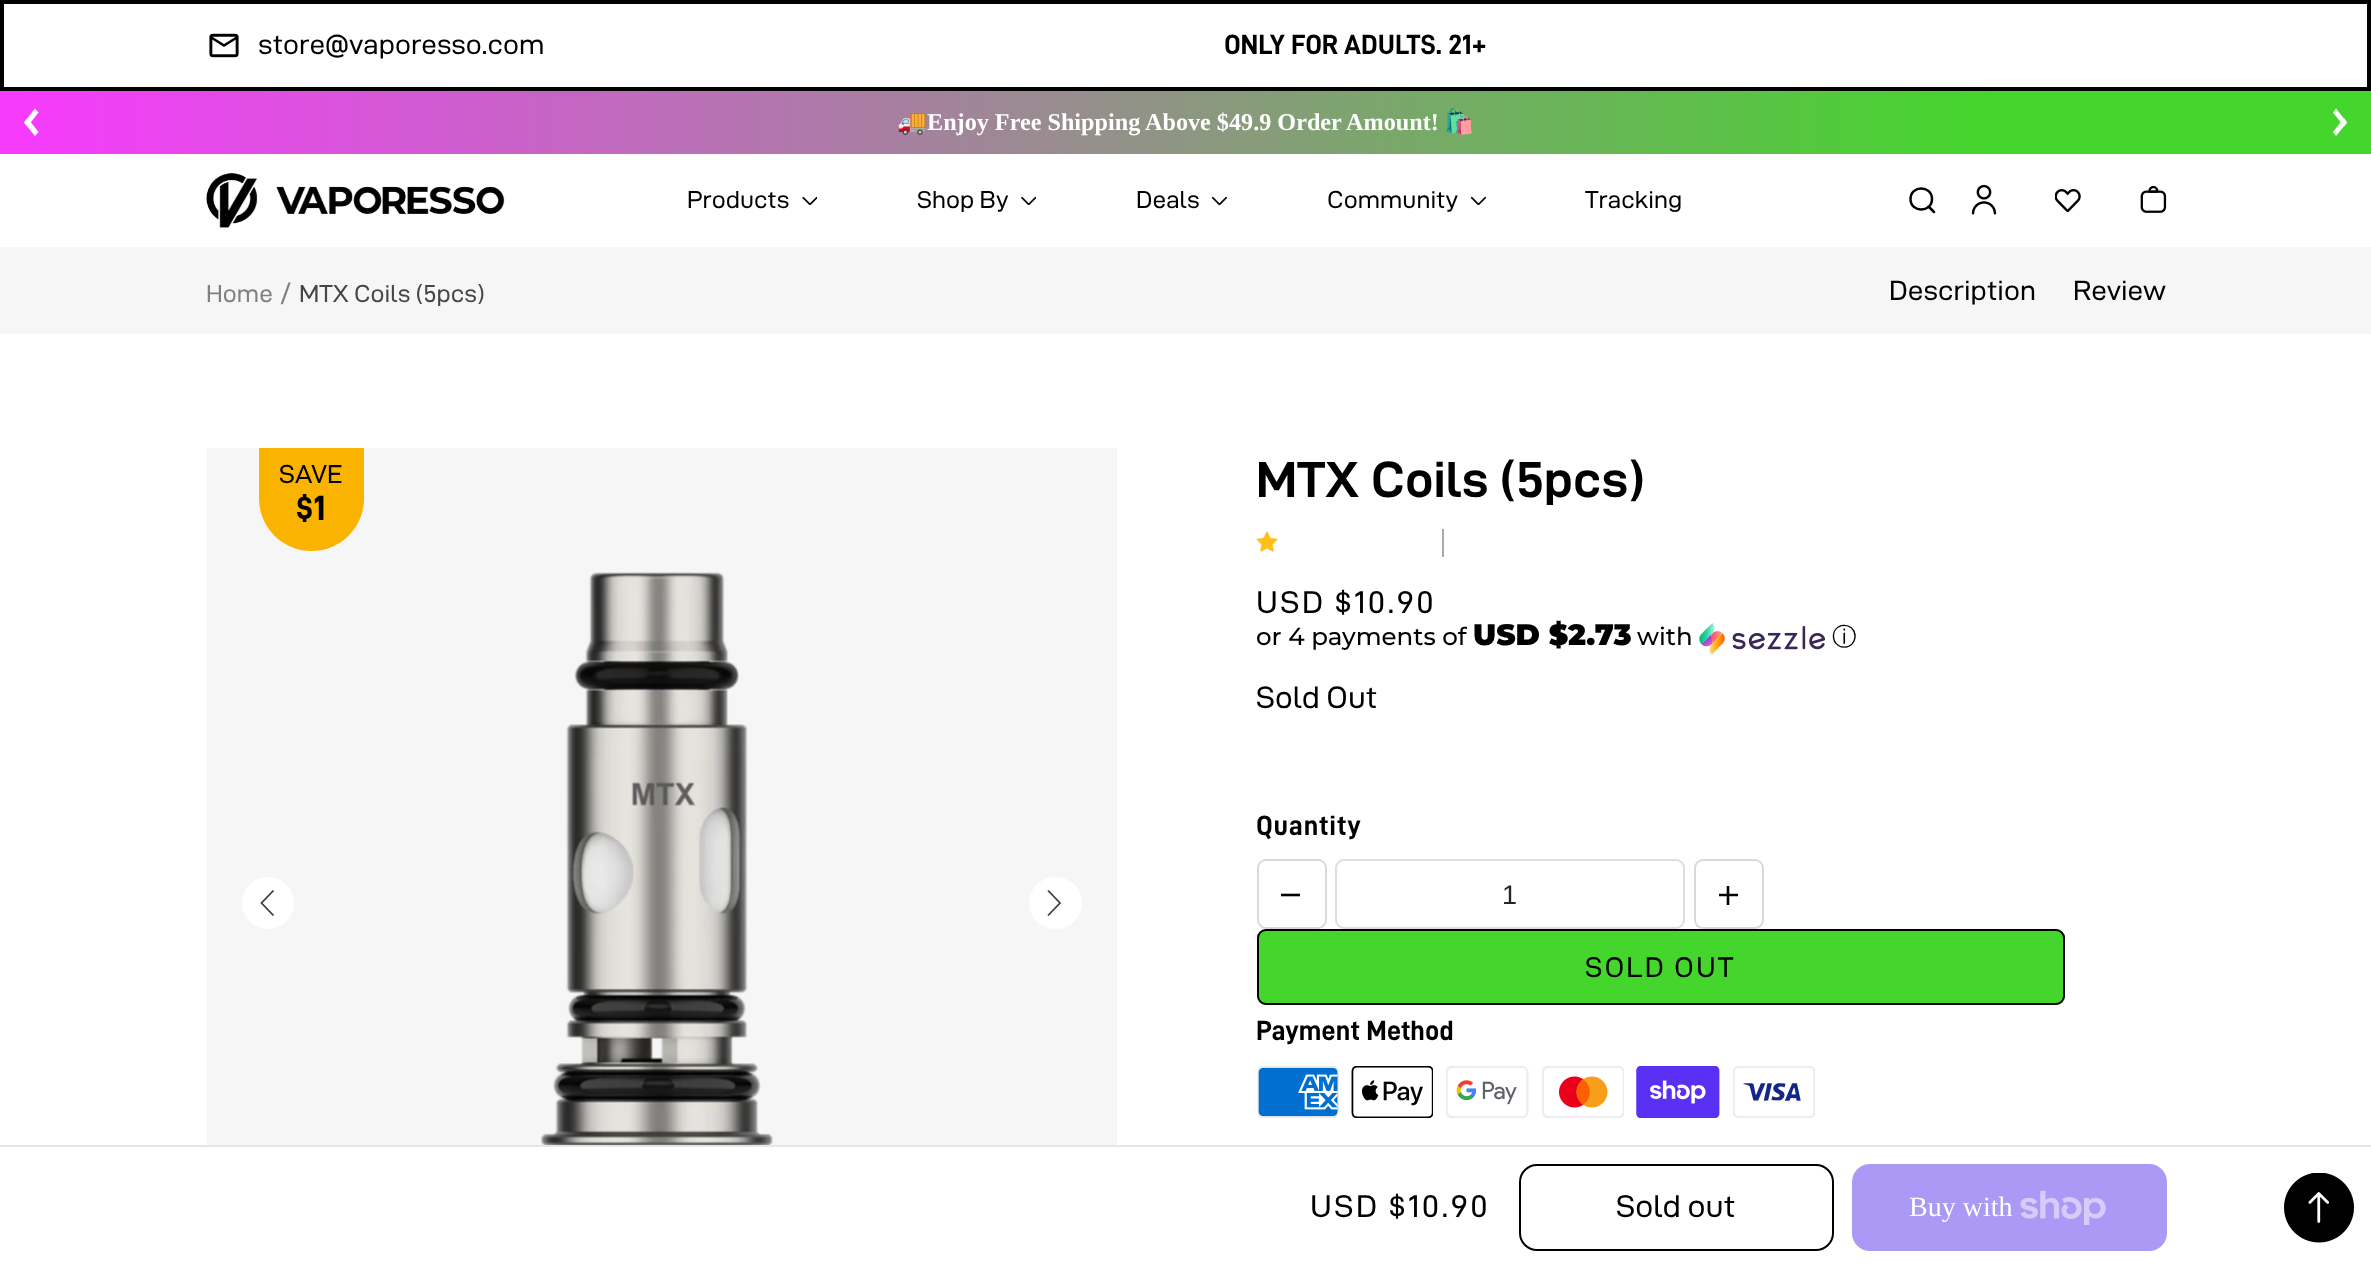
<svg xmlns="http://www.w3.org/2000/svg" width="2371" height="1266">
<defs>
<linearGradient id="g1" gradientUnits="userSpaceOnUse" x1="0" y1="123" x2="2371" y2="122"><stop offset="0.01" stop-color="#f63bfd"/><stop offset="0.84" stop-color="#44d62c"/></linearGradient>
<clipPath id="clip1"><rect x="1257" y="620" width="808" height="35"/></clipPath>
<clipPath id="clip2"><rect x="1719" y="886" width="19" height="19"/></clipPath>
</defs>
<rect width="100%" height="100%" fill="#fff"/>
<rect x="2" y="2" width="2367" height="87" fill="none" stroke="#000" stroke-width="4"/>
<image x="209" y="33" width="30" height="25" href="media/1.png"/>
<text x="258" y="54" style="font-family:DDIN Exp;font-size:28px;fill:#000">store@vaporesso.com</text>
<text x="1224" y="54" style="font-family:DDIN;font-size:28px;font-weight:bold;fill:#000">ONLY FOR ADULTS. 21+</text>
<rect y="91" width="2371" height="63" fill="url(#g1)"/>
<path d="M24 122.5l11-14l3.5 4l-11 14z" fill="#fff"/>
<path d="M24 122.5l3.5-4.5l11 14l-3.5 4z" fill="#fff"/>
<text x="897" y="130" style="font-family:Noto Color Emoji;font-size:24.2px;font-weight:bold;fill:#fff">🚚</text>
<text x="927" y="130" style="font-family:Liberation Serif;font-size:24.2px;font-weight:bold;fill:#fff">Enjoy Free Shipping Above $49.9 Order Amount!</text>
<text x="1444" y="130" style="font-family:Noto Color Emoji;font-size:24.2px;font-weight:bold;fill:#fff">🛍️</text>
<path d="M2347 122.5l-11 13.5l-3-4l11-14z" fill="#fff"/>
<path d="M2347 122.5l-3 4l-11-14l3-4z" fill="#fff"/>
<image x="206" y="173" width="299" height="55" href="media/2.png"/>
<text x="687" y="208" style="font-family:DDIN Exp;font-size:24.5px;fill:#000">Products</text>
<image x="802" y="196" width="15" height="9" href="media/3.png"/>
<text x="917" y="208" style="font-family:DDIN Exp;font-size:24.5px;fill:#000">Shop By</text>
<image x="1021" y="196" width="15" height="9" href="media/4.png"/>
<text x="1136" y="208" style="font-family:DDIN Exp;font-size:24.5px;fill:#000">Deals</text>
<image x="1211" y="196" width="16" height="9" href="media/5.png"/>
<text x="1327" y="208" style="font-family:DDIN Exp;font-size:24.5px;fill:#000">Community</text>
<image x="1470" y="196" width="16" height="9" href="media/5.png"/>
<text x="1585" y="208" style="font-family:DDIN Exp;font-size:24.5px;fill:#000">Tracking</text>
<path d="M1934 212l-5.5-5.5m3.5-7.5c0 14-21.5 14-21.5 0c0-14 21.5-14 21.5 0z" fill="none" stroke="#000" stroke-width="2.5" stroke-linecap="round"/>
<image x="1971" y="184" width="26" height="31" href="media/6.png"/>
<image x="2055" y="189" width="26" height="23" href="media/7.png"/>
<image x="2140" y="186" width="27" height="27" href="media/8.png"/>
<rect y="247" width="2371" height="87" fill="#f6f6f6"/>
<text x="206" y="302" style="font-family:DDIN Exp;font-size:24.5px;fill:#808080">Home</text>
<text x="279" y="304" style="font-family:DDIN Exp;font-size:31px;fill:#808080">/</text>
<text x="299" y="302" style="font-family:DDIN Exp;font-size:24.5px;fill:#464646">MTX Coils (5pcs)</text>
<text x="1889" y="300" style="font-family:DDIN Exp;font-size:28px;fill:#000">Description</text>
<text x="2073" y="300" style="font-family:DDIN Exp;font-size:28px;fill:#000">Review</text>
<rect x="207" y="448" width="910" height="697" fill="#f6f6f6"/>
<path d="M259 448h105v50.5c0 29-23.5 52.5-52.5 52.5c-29 0-52.5-23.5-52.5-52.5z" fill="#fab301"/>
<text x="279" y="483" style="font-family:DDIN Exp;font-size:26px;fill:#000">SAVE</text>
<text x="296" y="520" style="font-family:DDIN;font-size:35px;font-weight:bold;fill:#000">$1</text>
<image x="540" y="572" width="234" height="573" href="media/9.png"/>
<circle cx="268" cy="903" r="26" fill="#fff"/>
<path d="M273.5 890.5l-12 12.5l12 12.5" fill="none" stroke="#3f3f3f" stroke-width="1.8"/>
<rect x="1029" y="877" width="53" height="52" rx="26" fill="#fff"/>
<path d="M1048 890.5l12 12.5l-12 12.5" fill="none" stroke="#3f3f3f" stroke-width="1.8"/>
<text x="1256" y="497" style="font-family:DDIN Exp;font-size:50.75px;font-weight:bold;fill:#000">MTX Coils (5pcs)</text>
<image x="1256" y="531" width="22" height="21" href="media/10.png"/>
<rect x="1442" y="529" width="2" height="28" fill="#aaa"/>
<text x="1256" y="613" style="font-family:DDIN Exp;font-size:31.5px;letter-spacing:2.5px;fill:#000">USD $10.90</text>
<g clip-path="url(#clip1)">
<text x="1256" y="645" style="font-family:Montserrat;font-size:24.5px;font-weight:500;fill:#000">or 4 payments of</text>
</g>
<text x="1473" y="645" style="font-family:Montserrat;font-size:29.5px;font-weight:900;fill:#000">USD $2.73</text>
<text x="1637" y="645" style="font-family:Montserrat;font-size:24.5px;font-weight:500;fill:#000">with</text>
<image x="1699" y="623" width="126" height="32" href="media/11.png"/>
<text x="1832" y="645" style="font-family:WenQuanYi Zen Hei;font-size:24.5px;font-weight:500;fill:#000">ⓘ</text>
<text x="1256" y="708" style="font-family:DDIN Exp;font-size:31px;fill:#000">Sold Out</text>
<text x="1256" y="835" style="font-family:DDIN;font-size:28px;font-weight:bold;letter-spacing:0.75px;fill:#000">Quantity</text>
<rect x="1258" y="860" width="68" height="68" rx="8" fill="none" stroke="#d9d9d9" stroke-width="2"/>
<path d="M1281 895h19" fill="none" stroke="#000" stroke-width="2.6"/>
<rect x="1336" y="860" width="348" height="68" rx="8" fill="none" stroke="#dfdfdf" stroke-width="2"/>
<text x="1502" y="904" style="font-family:Liberation Sans;font-size:27px;fill:#262626">1</text>
<rect x="1695" y="860" width="68" height="68" rx="8" fill="none" stroke="#d9d9d9" stroke-width="2"/>
<g clip-path="url(#clip2)">
<path d="M1718.5 895h19.5m-10 10v-19.5" fill="none" stroke="#000" stroke-width="2.6"/>
</g>
<rect x="1257" y="929" width="808" height="76" rx="9" fill="#44d62c"/>
<rect x="1258" y="930" width="806" height="74" rx="8" fill="none" stroke="#000" stroke-width="2"/>
<text x="1585" y="977" style="font-family:DDIN Exp;font-size:28.5px;letter-spacing:2px;fill:#000">SOLD OUT</text>
<text x="1256" y="1040" style="font-family:DDIN;font-size:28px;font-weight:bold;fill:#000">Payment Method</text>
<image x="1257" y="1066" width="82" height="52" href="media/12.png"/>
<image x="1351" y="1066" width="82" height="52" href="media/13.png"/>
<image x="1446" y="1066" width="83" height="52" href="media/14.png"/>
<image x="1542" y="1066" width="82" height="52" href="media/15.png"/>
<image x="1636" y="1066" width="84" height="52" href="media/16.png"/>
<image x="1733" y="1066" width="82" height="52" href="media/17.png"/>
<rect y="1145" width="2371" height="2" fill="#e6e6e6"/>
<text x="1310" y="1217" style="font-family:DDIN Exp;font-size:31.5px;letter-spacing:2.5px;fill:#000">USD $10.90</text>
<rect x="1520" y="1165" width="313" height="85" rx="17" fill="none" stroke="#000" stroke-width="2"/>
<text x="1616" y="1217" style="font-family:DDIN Exp;font-size:31.5px;fill:#000">Sold out</text>
<rect x="1852" y="1164" width="315" height="87" rx="18" fill="#aa99f5"/>
<text x="1909" y="1216" style="font-family:Liberation Serif;font-size:28px;fill:#fff">Buy with</text>
<image x="2020" y="1190" width="86" height="35" href="media/18.png"/>
<image x="2284" y="1173" width="70" height="70" href="media/19.png"/>
</svg>
